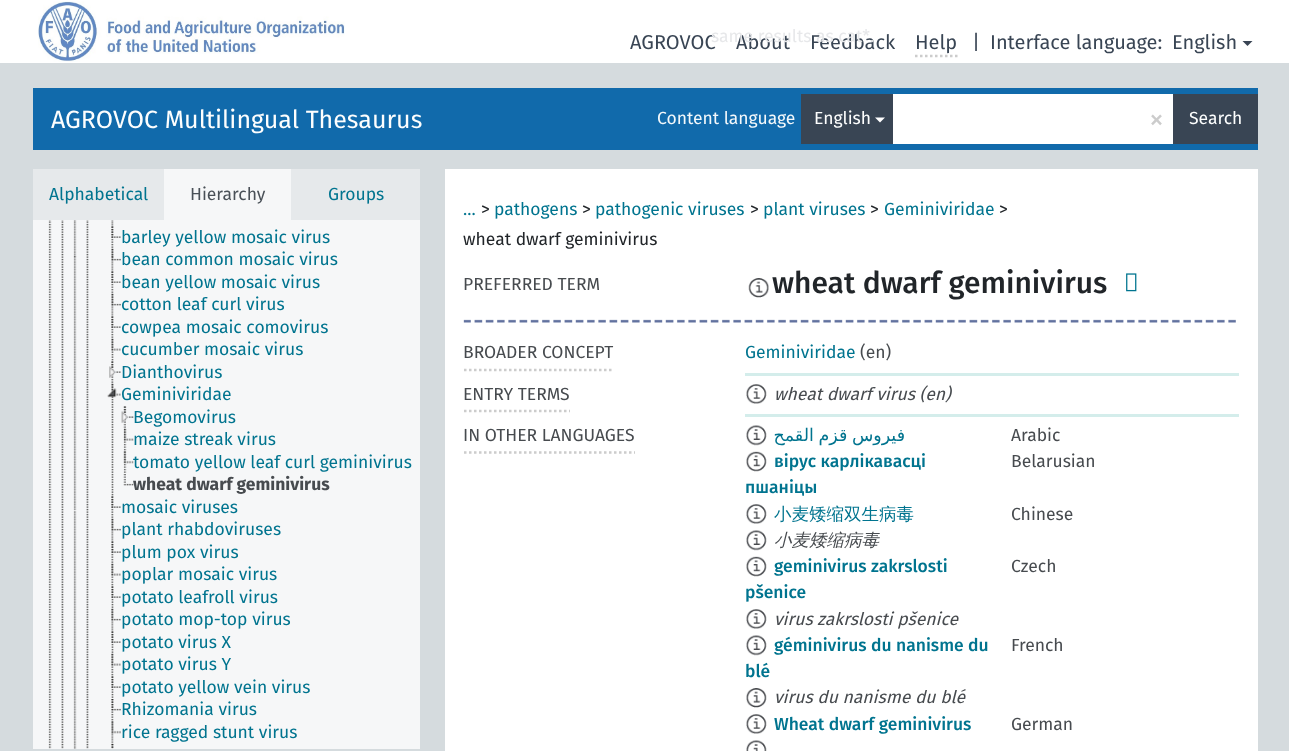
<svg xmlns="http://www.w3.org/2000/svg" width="1289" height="751">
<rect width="100%" height="100%" fill="#d5dbde"/>
<rect width="1289" height="63" fill="#fff"/>
<image x="38" y="1" width="307" height="61" href="media/1.png"/>
<text x="630" y="49" style="font-family:Fira Sans;font-size:20px;fill:#394554">AGROVOC</text>
<text x="736" y="49" style="font-family:Fira Sans;font-size:20px;fill:#394554">About</text>
<text x="810" y="49" style="font-family:Fira Sans;font-size:20px;fill:#394554">Feedback</text>
<text x="711" y="42" style="font-family:Fira Sans;font-size:17.5px;fill:#e7e8ea">same results as cat*.</text>
<text x="915" y="49" style="font-family:Fira Sans;font-size:20px;fill:#394554">Help</text>
<path d="M915 56h42.5" fill="none" stroke="#ccc" stroke-width="2.5" stroke-dasharray="2.5 2.5"/>
<text x="972" y="49" style="font-family:Fira Sans;font-size:20px;fill:#394554">|</text>
<text x="990" y="49" style="font-family:Fira Sans;font-size:20px;fill:#394554">Interface language:</text>
<text x="1172" y="49" style="font-family:Fira Sans;font-size:20px;fill:#394554">English</text>
<path d="M1242.5 41h10l-5 5z" fill="#394554"/>
<rect x="33" y="88" width="1225" height="62" fill="#116aab"/>
<text x="51" y="128" style="font-family:Fira Sans;font-size:25px;fill:#fdfefe">AGROVOC Multilingual Thesaurus</text>
<text x="657" y="124" style="font-family:Fira Sans;font-size:17.5px;fill:#f3f8fb">Content language</text>
<rect x="801" y="94" width="92" height="50" fill="#394554"/>
<text x="814" y="124" style="font-family:Fira Sans;font-size:17.5px;fill:#fdfefe">English</text>
<path d="M875 117.5h10l-5 5z" fill="#fff"/>
<rect x="893" y="94" width="280" height="50" fill="#fff"/>
<text x="1149" y="129" style="font-family:Fira Sans;font-size:30px;fill:#ccc">×</text>
<rect x="1173" y="94" width="85" height="50" fill="#394554"/>
<text x="1189" y="124" style="font-family:Fira Sans;font-size:17.5px;fill:#fdfefe">Search</text>
<rect x="33" y="169" width="131" height="51" fill="#e6e9eb"/>
<text x="49" y="200" style="font-family:Fira Sans;font-size:17.5px;fill:#00748f">Alphabetical</text>
<rect x="164" y="169" width="127" height="51" fill="#f6f7f8"/>
<text x="190" y="200" style="font-family:Fira Sans;font-size:17.5px;fill:#495057">Hierarchy</text>
<rect x="291" y="169" width="129" height="51" fill="#e6e9eb"/>
<text x="328" y="200" style="font-family:Fira Sans;font-size:17.5px;fill:#00748f">Groups</text>
<rect x="33" y="220" width="387" height="529" fill="#f6f7f8"/>
<image x="48" y="220" width="4" height="529" href="media/2.png"/>
<image x="61" y="220" width="3" height="529" href="media/3.png"/>
<image x="73" y="220" width="4" height="529" href="media/4.png"/>
<image x="86" y="220" width="3" height="529" href="media/3.png"/>
<image x="111" y="220" width="3" height="6" href="media/5.png"/>
<image x="111" y="226" width="3" height="22" href="media/6.png"/>
<image x="111" y="226" width="10" height="12" href="media/7.png"/>
<text x="121" y="243" style="font-family:Fira Sans;font-size:17.5px;fill:#00748f">barley yellow mosaic virus</text>
<image x="111" y="248" width="3" height="23" href="media/8.png"/>
<image x="111" y="249" width="10" height="12" href="media/9.png"/>
<text x="121" y="265" style="font-family:Fira Sans;font-size:17.5px;fill:#00748f">bean common mosaic virus</text>
<image x="111" y="271" width="3" height="22" href="media/10.png"/>
<image x="111" y="271" width="10" height="12" href="media/11.png"/>
<text x="121" y="288" style="font-family:Fira Sans;font-size:17.5px;fill:#00748f">bean yellow mosaic virus</text>
<image x="111" y="293" width="3" height="23" href="media/12.png"/>
<image x="111" y="294" width="10" height="12" href="media/13.png"/>
<text x="121" y="310" style="font-family:Fira Sans;font-size:17.5px;fill:#00748f">cotton leaf curl virus</text>
<image x="111" y="316" width="3" height="22" href="media/6.png"/>
<image x="111" y="316" width="10" height="12" href="media/7.png"/>
<text x="121" y="333" style="font-family:Fira Sans;font-size:17.5px;fill:#00748f">cowpea mosaic comovirus</text>
<image x="111" y="339" width="3" height="22" href="media/14.png"/>
<image x="111" y="338" width="10" height="13" href="media/15.png"/>
<text x="121" y="355" style="font-family:Fira Sans;font-size:17.5px;fill:#00748f">cucumber mosaic virus</text>
<image x="111" y="361" width="3" height="22" href="media/6.png"/>
<image x="109" y="361" width="12" height="17" href="media/16.png"/>
<text x="121" y="378" style="font-family:Fira Sans;font-size:17.5px;fill:#00748f">Dianthovirus</text>
<image x="111" y="384" width="3" height="112" href="media/17.png"/>
<image x="107" y="383" width="14" height="15" href="media/18.png"/>
<text x="121" y="400" style="font-family:Fira Sans;font-size:17.5px;fill:#00748f">Geminiviridae</text>
<image x="123" y="406" width="3" height="22" href="media/19.png"/>
<image x="121" y="406" width="13" height="17" href="media/20.png"/>
<text x="133" y="423" style="font-family:Fira Sans;font-size:17.5px;fill:#00748f">Begomovirus</text>
<image x="123" y="429" width="4" height="22" href="media/21.png"/>
<image x="123" y="428" width="11" height="13" href="media/22.png"/>
<text x="133" y="445" style="font-family:Fira Sans;font-size:17.5px;fill:#00748f">maize streak virus</text>
<image x="123" y="451" width="4" height="22" href="media/23.png"/>
<image x="123" y="451" width="11" height="13" href="media/24.png"/>
<text x="133" y="468" style="font-family:Fira Sans;font-size:17.5px;fill:#00748f">tomato yellow leaf curl geminivirus</text>
<image x="123" y="474" width="11" height="12" href="media/25.png"/>
<text x="133" y="490" style="font-family:Fira Sans;font-size:17.5px;font-weight:bold;fill:#474b4f">wheat dwarf geminivirus</text>
<image x="111" y="496" width="3" height="22" href="media/6.png"/>
<image x="111" y="496" width="10" height="12" href="media/7.png"/>
<text x="121" y="513" style="font-family:Fira Sans;font-size:17.5px;fill:#00748f">mosaic viruses</text>
<image x="111" y="518" width="3" height="23" href="media/26.png"/>
<image x="111" y="519" width="10" height="12" href="media/27.png"/>
<text x="121" y="535" style="font-family:Fira Sans;font-size:17.5px;fill:#00748f">plant rhabdoviruses</text>
<image x="111" y="541" width="3" height="22" href="media/6.png"/>
<image x="111" y="541" width="10" height="12" href="media/28.png"/>
<text x="121" y="558" style="font-family:Fira Sans;font-size:17.5px;fill:#00748f">plum pox virus</text>
<image x="111" y="564" width="3" height="22" href="media/29.png"/>
<image x="111" y="563" width="10" height="13" href="media/30.png"/>
<text x="121" y="580" style="font-family:Fira Sans;font-size:17.5px;fill:#00748f">poplar mosaic virus</text>
<image x="111" y="586" width="3" height="22" href="media/31.png"/>
<image x="111" y="586" width="10" height="12" href="media/32.png"/>
<text x="121" y="603" style="font-family:Fira Sans;font-size:17.5px;fill:#00748f">potato leafroll virus</text>
<image x="111" y="608" width="3" height="23" href="media/26.png"/>
<image x="111" y="609" width="10" height="12" href="media/33.png"/>
<text x="121" y="625" style="font-family:Fira Sans;font-size:17.5px;fill:#00748f">potato mop-top virus</text>
<image x="111" y="631" width="3" height="22" href="media/31.png"/>
<image x="111" y="631" width="10" height="12" href="media/32.png"/>
<text x="121" y="648" style="font-family:Fira Sans;font-size:17.5px;fill:#00748f">potato virus X</text>
<image x="111" y="654" width="3" height="22" href="media/34.png"/>
<image x="111" y="653" width="10" height="13" href="media/35.png"/>
<text x="121" y="670" style="font-family:Fira Sans;font-size:17.5px;fill:#00748f">potato virus Y</text>
<image x="111" y="676" width="3" height="22" href="media/31.png"/>
<image x="111" y="676" width="10" height="12" href="media/32.png"/>
<text x="121" y="693" style="font-family:Fira Sans;font-size:17.5px;fill:#00748f">potato yellow vein virus</text>
<image x="111" y="699" width="3" height="22" href="media/34.png"/>
<image x="111" y="699" width="10" height="12" href="media/36.png"/>
<text x="121" y="715" style="font-family:Fira Sans;font-size:17.5px;fill:#00748f">Rhizomania virus</text>
<image x="111" y="721" width="3" height="23" href="media/37.png"/>
<image x="111" y="721" width="10" height="13" href="media/38.png"/>
<text x="121" y="738" style="font-family:Fira Sans;font-size:17.5px;fill:#00748f">rice ragged stunt virus</text>
<image x="111" y="744" width="3" height="5" href="media/39.png"/>
<image x="111" y="744" width="3" height="5" href="media/40.png"/>
<rect x="445" y="169" width="813" height="582" fill="#fff"/>
<text x="481" y="215" style="font-family:Fira Sans;font-size:17.5px;fill:#212529">&gt;</text>
<text x="494" y="215" style="font-family:Fira Sans;font-size:17.5px;fill:#00748f">pathogens</text>
<text x="582" y="215" style="font-family:Fira Sans;font-size:17.5px;fill:#212529">&gt;</text>
<text x="595" y="215" style="font-family:Fira Sans;font-size:17.5px;fill:#00748f">pathogenic viruses</text>
<text x="750" y="215" style="font-family:Fira Sans;font-size:17.5px;fill:#212529">&gt;</text>
<text x="763" y="215" style="font-family:Fira Sans;font-size:17.5px;fill:#00748f">plant viruses</text>
<text x="870" y="215" style="font-family:Fira Sans;font-size:17.5px;fill:#212529">&gt;</text>
<text x="884" y="215" style="font-family:Fira Sans;font-size:17.5px;fill:#00748f">Geminiviridae</text>
<text x="999" y="215" style="font-family:Fira Sans;font-size:17.5px;fill:#212529">&gt;</text>
<text x="463" y="215" style="font-family:Fira Sans;font-size:17.5px;fill:#00748f">...</text>
<text x="463" y="245" style="font-family:Fira Sans;font-size:17.5px;fill:#212529">wheat dwarf geminivirus</text>
<text x="463" y="290" style="font-family:Fira Sans;font-size:17.5px;fill:#474b4f">PREFERRED TERM</text>
<image x="748" y="278" width="21" height="20" href="media/41.png"/>
<text x="772" y="293" style="font-family:Fira Sans;font-size:30px;font-weight:500;fill:#212529">wheat dwarf geminivirus</text>
<image x="1126" y="273" width="11" height="19" href="media/42.png"/>
<image x="463" y="319" width="773" height="4" href="media/43.png"/>
<path d="M464 370h150" fill="none" stroke="#ccc" stroke-width="2.5" stroke-dasharray="2.5 2.5"/>
<text x="463" y="358" style="font-family:Fira Sans;font-size:17.5px;fill:#474b4f">BROADER CONCEPT</text>
<rect x="745" y="373" width="494" height="3" fill="#d4edeb"/>
<text x="745" y="358" style="font-family:Fira Sans;font-size:17.5px;fill:#00748f">Geminiviridae</text>
<text x="860" y="358" style="font-family:Fira Sans;font-size:17.5px;fill:#474b4f">(en)</text>
<path d="M464 411h106" fill="none" stroke="#ccc" stroke-width="2.5" stroke-dasharray="2.5 2.5"/>
<text x="463" y="400" style="font-family:Fira Sans;font-size:17.5px;fill:#474b4f">ENTRY TERMS</text>
<rect x="745" y="414" width="494" height="3" fill="#d4edeb"/>
<image x="746" y="384" width="21" height="20" href="media/44.png"/>
<text x="774" y="400" style="font-family:Fira Sans;font-size:17.5px;font-style:italic;fill:#474b4f">wheat dwarf virus (en)</text>
<path d="M464 452.5h171" fill="none" stroke="#ccc" stroke-width="2.5" stroke-dasharray="2.5 2.5"/>
<text x="463" y="441" style="font-family:Fira Sans;font-size:17.5px;fill:#474b4f">IN OTHER LANGUAGES</text>
<image x="746" y="425" width="21" height="21" href="media/45.png"/>
<text x="905" y="441" word-spacing="-1" style="font-family:DejaVu Sans;font-size:17.5px;direction:rtl;fill:#00748f">فيروس قزم القمح</text>
<text x="1011" y="441" style="font-family:Fira Sans;font-size:17.5px;fill:#474b4f">Arabic</text>
<image x="746" y="451" width="21" height="21" href="media/46.png"/>
<text x="774" y="467" style="font-family:Fira Sans;font-size:17.5px;font-weight:500;fill:#00748f">вірус карлікавасці</text>
<text x="745" y="493" style="font-family:Fira Sans;font-size:17.5px;font-weight:500;fill:#00748f">пшаніцы</text>
<text x="1011" y="467" style="font-family:Fira Sans;font-size:17.5px;fill:#474b4f">Belarusian</text>
<image x="746" y="504" width="21" height="20" href="media/47.png"/>
<text x="774" y="520" style="font-family:WenQuanYi Zen Hei;font-size:17.5px;font-weight:500;fill:#00748f">小麦矮缩双生病毒</text>
<text x="1011" y="520" style="font-family:Fira Sans;font-size:17.5px;fill:#474b4f">Chinese</text>
<image x="746" y="530" width="21" height="21" href="media/45.png"/>
<text x="774" y="546" style="font-family:WenQuanYi Zen Hei;font-size:17.5px;font-weight:500;font-style:italic;fill:#474b4f">小麦矮缩病毒</text>
<image x="746" y="556" width="21" height="21" href="media/46.png"/>
<text x="774" y="572" style="font-family:Fira Sans;font-size:17.5px;font-weight:500;fill:#00748f">geminivirus zakrslosti</text>
<text x="745" y="598" style="font-family:Fira Sans;font-size:17.5px;font-weight:500;fill:#00748f">pšenice</text>
<text x="1011" y="572" style="font-family:Fira Sans;font-size:17.5px;fill:#474b4f">Czech</text>
<image x="746" y="609" width="21" height="20" href="media/48.png"/>
<text x="774" y="625" style="font-family:Fira Sans;font-size:17.5px;font-style:italic;fill:#474b4f">virus zakrslosti pšenice</text>
<image x="746" y="635" width="21" height="21" href="media/45.png"/>
<text x="774" y="651" style="font-family:Fira Sans;font-size:17.5px;font-weight:500;fill:#00748f">géminivirus du nanisme du</text>
<text x="745" y="677" style="font-family:Fira Sans;font-size:17.5px;font-weight:500;fill:#00748f">blé</text>
<text x="1011" y="651" style="font-family:Fira Sans;font-size:17.5px;fill:#474b4f">French</text>
<image x="746" y="688" width="21" height="20" href="media/49.png"/>
<text x="774" y="703" style="font-family:Fira Sans;font-size:17.5px;font-style:italic;fill:#474b4f">virus du nanisme du blé</text>
<image x="746" y="714" width="21" height="20" href="media/44.png"/>
<text x="774" y="730" style="font-family:Fira Sans;font-size:17.5px;font-weight:500;fill:#00748f">Wheat dwarf geminivirus</text>
<text x="1011" y="730" style="font-family:Fira Sans;font-size:17.5px;fill:#474b4f">German</text>
<image x="746" y="740" width="21" height="11" href="media/50.png"/>
</svg>
